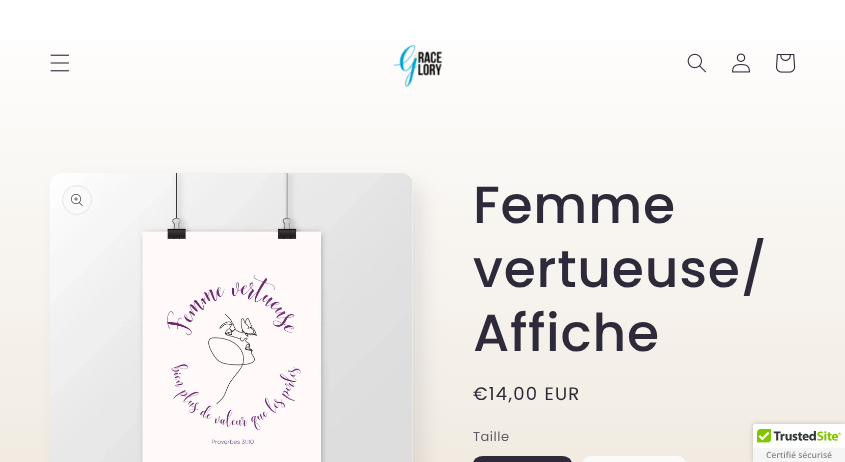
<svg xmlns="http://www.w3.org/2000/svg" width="845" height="462">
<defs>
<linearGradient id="g1" gradientUnits="userSpaceOnUse" x1="423" y1="0" x2="423" y2="462"><stop offset="0" stop-color="#fff"/><stop offset="1" stop-color="#f1ebe2"/></linearGradient>
</defs>
<rect width="100%" height="100%" fill="#fff"/>
<rect y="40" width="845" height="422" fill="url(#g1)"/>
<image x="50" y="54" width="20" height="18" href="media/1.png"/>
<image x="393" y="45" width="50" height="43" href="media/2.png"/>
<image x="687" y="53" width="19" height="20" href="media/3.png"/>
<image x="732" y="53" width="18" height="20" href="media/4.png"/>
<image x="776" y="54" width="20" height="19" href="media/5.png"/>
<rect x="60" y="185" width="363" height="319" rx="12" fill="#2e2a391a" filter="blur(10px)"/>
<path d="M62 173h339c6.5 0 12 5.5 12 12v277h-363v-277c0-6.5 5.5-12 12-12z" fill="url(#g1)"/>
<image x="50" y="173" width="363" height="289" href="media/6.png"/>
<circle cx="77" cy="200" r="14.5" fill="#fafafa" stroke="#e6e5e7"/>
<image x="71" y="194" width="12" height="12" href="media/7.png"/>
<text x="473" y="223" style="font-family:Poppins;font-size:52px;font-weight:500;letter-spacing:0.75px;fill:#2e2a39">Femme</text>
<text x="473" y="287" style="font-family:Poppins;font-size:52px;font-weight:500;letter-spacing:0.75px;fill:#2e2a39">vertueuse/</text>
<text x="473" y="351" style="font-family:Poppins;font-size:52px;font-weight:500;letter-spacing:0.75px;fill:#2e2a39">Affiche</text>
<text x="473" y="400" style="font-family:Poppins;font-size:18px;letter-spacing:1.25px;fill:#2e2a39">€14,00 EUR</text>
<text x="473" y="441" style="font-family:Poppins;font-size:13px;letter-spacing:0.5px;fill:#5f5b64">Taille</text>
<rect x="473" y="456" width="99" height="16" rx="10" fill="#2e2a39"/>
<rect x="582" y="456" width="104" height="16" rx="10" fill="#fafafa"/>
<rect x="753" y="424" width="92" height="38" rx="2" fill="#00000033" filter="blur(2.5px)"/>
<path d="M755 424h90v38h-92v-36c0-1 1-2 2-2z" fill="#fff"/>
<image x="753" y="429" width="92" height="33" href="media/8.png"/>
</svg>
